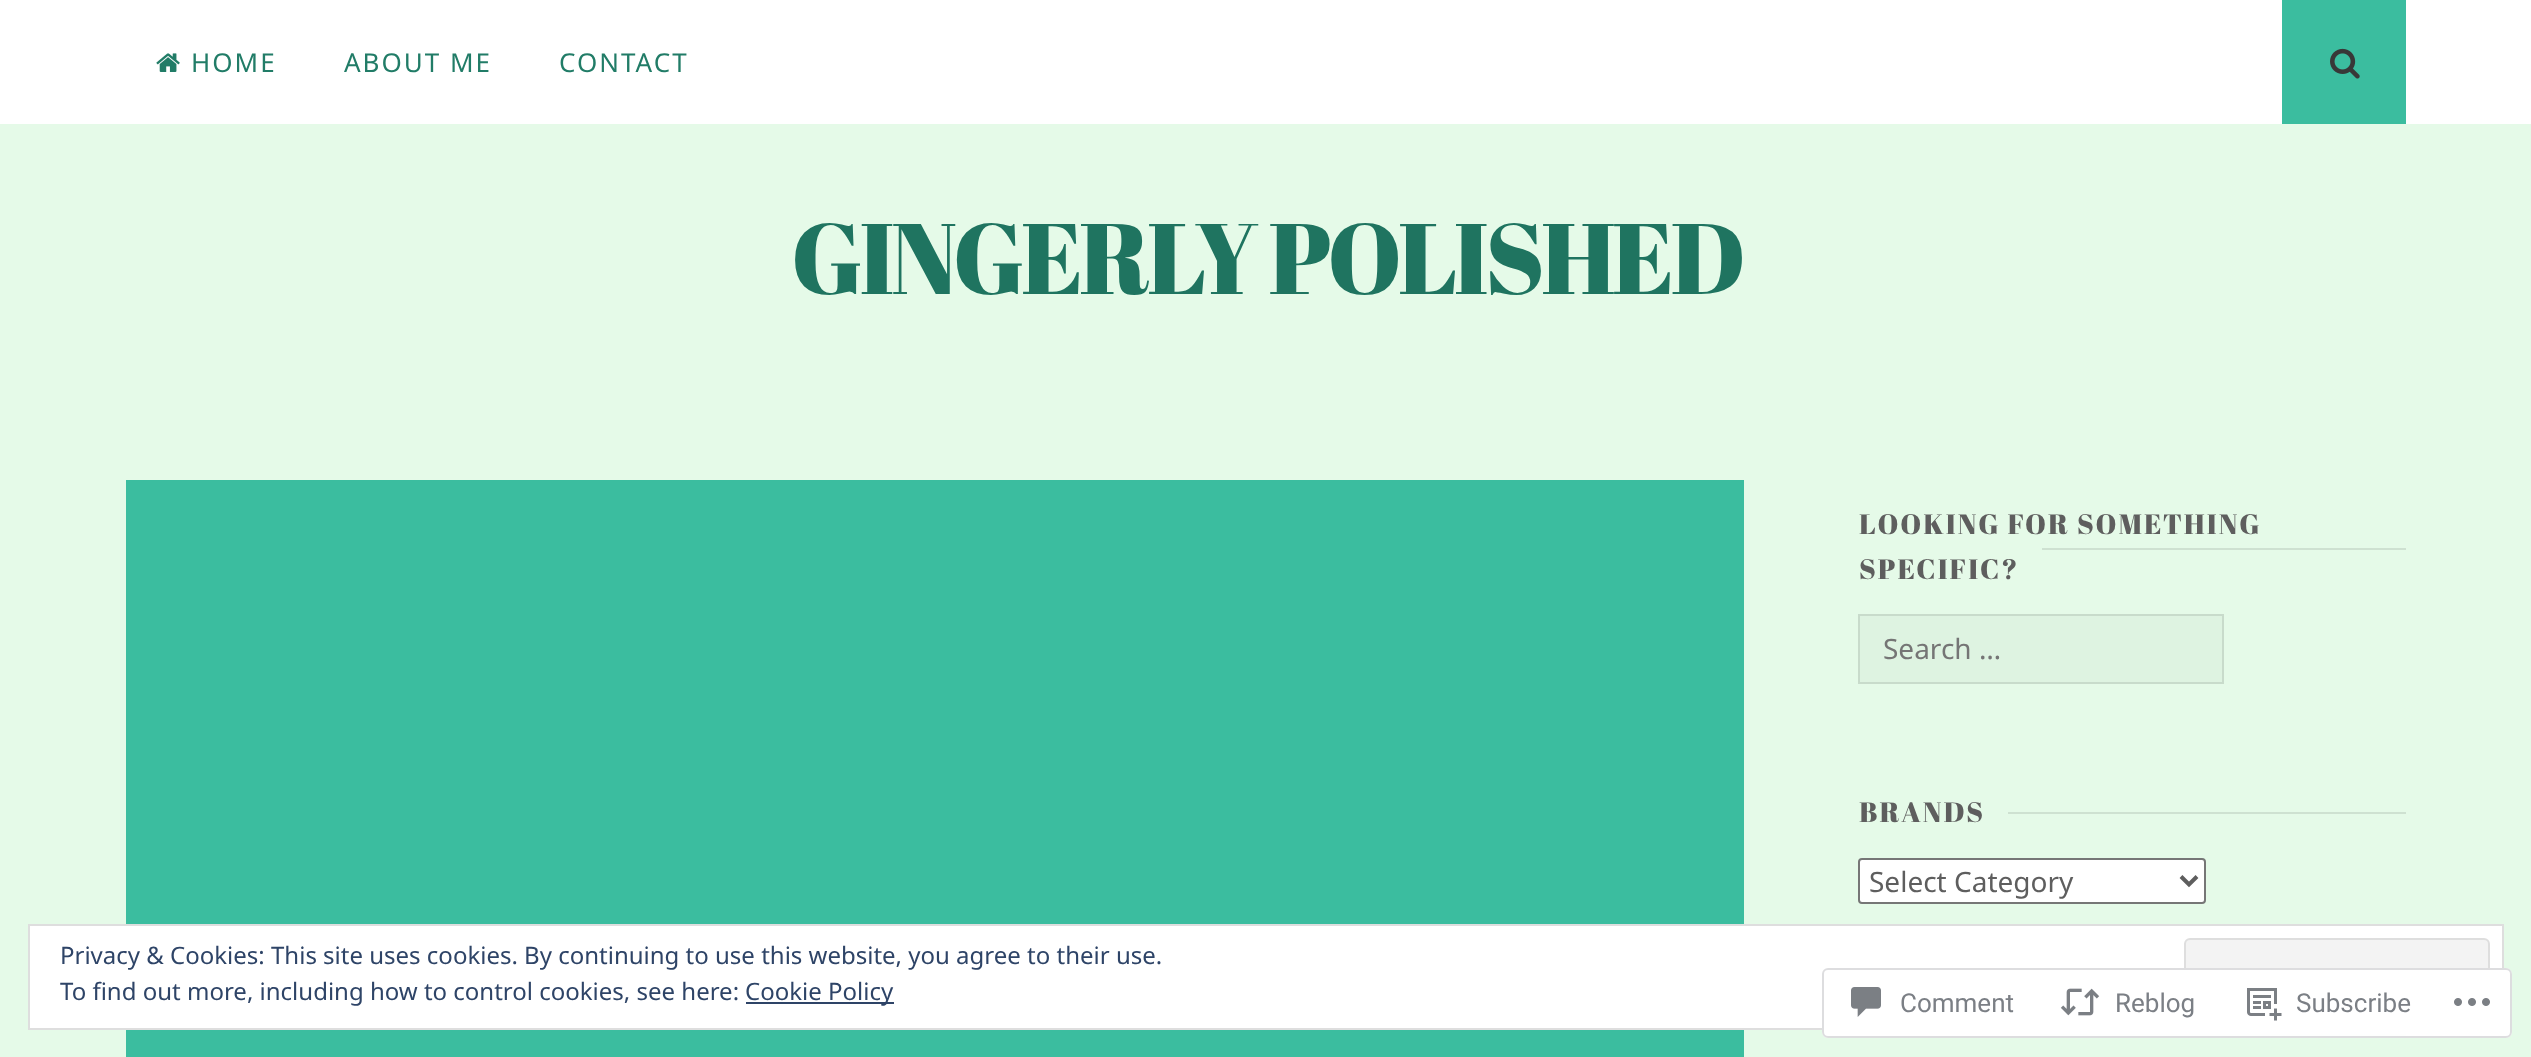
<svg xmlns="http://www.w3.org/2000/svg" width="2531" height="1057">
<rect width="100%" height="100%" fill="#e5fae8"/>
<rect width="2531" height="124" fill="#fff"/>
<image x="156" y="53" width="24" height="19" href="media/1.png"/>
<text x="191" y="72" style="font-family:Noto Sans;font-size:26px;letter-spacing:2px;fill:#217c67">HOME</text>
<text x="344" y="72" style="font-family:Noto Sans;font-size:26px;letter-spacing:2px;fill:#217c67">ABOUT ME</text>
<text x="559" y="72" style="font-family:Noto Sans;font-size:26px;letter-spacing:2px;fill:#217c67">CONTACT</text>
<rect x="2282" width="124" height="124" fill="#3bbd9f"/>
<image x="2330" y="48" width="30" height="31" href="media/2.png"/>
<text x="791" y="294" style="font-family:Abril Fatface;font-size:100px;letter-spacing:-4px;fill:#1f7460">GINGERLY POLISHED</text>
<rect x="126" y="480" width="1618" height="577" fill="#3bbd9f"/>
<text x="1859" y="534" style="font-family:Abril Fatface;font-size:28px;letter-spacing:2px;fill:#5e5e5e">LOOKING FOR SOMETHING</text>
<rect x="2042" y="548" width="364" height="2" fill="#cee1d1"/>
<text x="1859" y="579" style="font-family:Abril Fatface;font-size:28px;letter-spacing:2px;fill:#5e5e5e">SPECIFIC?</text>
<rect x="1859" y="615" width="364" height="68" fill="#def3e1" stroke="#c8dbcb" stroke-width="2"/>
<text x="1883" y="659" style="font-family:Noto Sans;font-size:28px;fill:#757575">Search …</text>
<text x="1859" y="822" style="font-family:Abril Fatface;font-size:28px;letter-spacing:2px;fill:#5e5e5e">BRANDS</text>
<rect x="2008" y="812" width="398" height="2" fill="#cee1d1"/>
<rect x="1859" y="859" width="346" height="44" rx="3" fill="#fff" stroke="#767676" stroke-width="2"/>
<path d="M2181 876.5l8 8l8-8" fill="none" stroke="#5e5e5e" stroke-width="4"/>
<text x="1869" y="892" style="font-family:Noto Sans;font-size:28px;fill:#5e5e5e">Select Category</text>
<rect x="2040" y="1034" width="366" height="2" fill="#cee1d1"/>
<rect x="29" y="925" width="2474" height="104" fill="#fff" stroke="#dedede" stroke-width="2"/>
<text x="60" y="964" style="font-family:Noto Sans;font-size:24px;fill:#2e4467">Privacy &amp; Cookies: This site uses cookies. By continuing to use this website, you agree to their use.</text>
<rect x="2185" y="939" width="304" height="76" rx="5" fill="#f3f3f3" stroke="#dedede" stroke-width="2"/>
<text x="60" y="1000" style="font-family:Noto Sans;font-size:24px;fill:#2e4467">To find out more, including how to control cookies, see here:</text>
<rect x="746" y="1002" width="148" height="2" fill="#2e4467"/>
<text x="745" y="1000" style="font-family:Noto Sans;font-size:24px;fill:#2e4467">Cookie Policy</text>
<rect x="1822" y="968" width="690" height="70" rx="6" fill="#fffffffa"/>
<rect x="1823" y="969" width="688" height="68" rx="5" fill="none" stroke="#dcdcdefa" stroke-width="2"/>
<image x="1851" y="987" width="30" height="30" href="media/3.png"/>
<text x="1900" y="1012" style="font-family:Roboto;font-size:26px;fill:#7b7f85">Comment</text>
<image x="2060" y="988" width="40" height="28" href="media/4.png"/>
<text x="2115" y="1012" style="font-family:Roboto;font-size:26px;fill:#7b7f85">Reblog</text>
<image x="2247" y="988" width="35" height="33" href="media/5.png"/>
<text x="2296" y="1012" style="font-family:Roboto;font-size:26px;fill:#7b7f85">Subscribe</text>
<image x="2454" y="998" width="36" height="8" href="media/6.png"/>
</svg>
